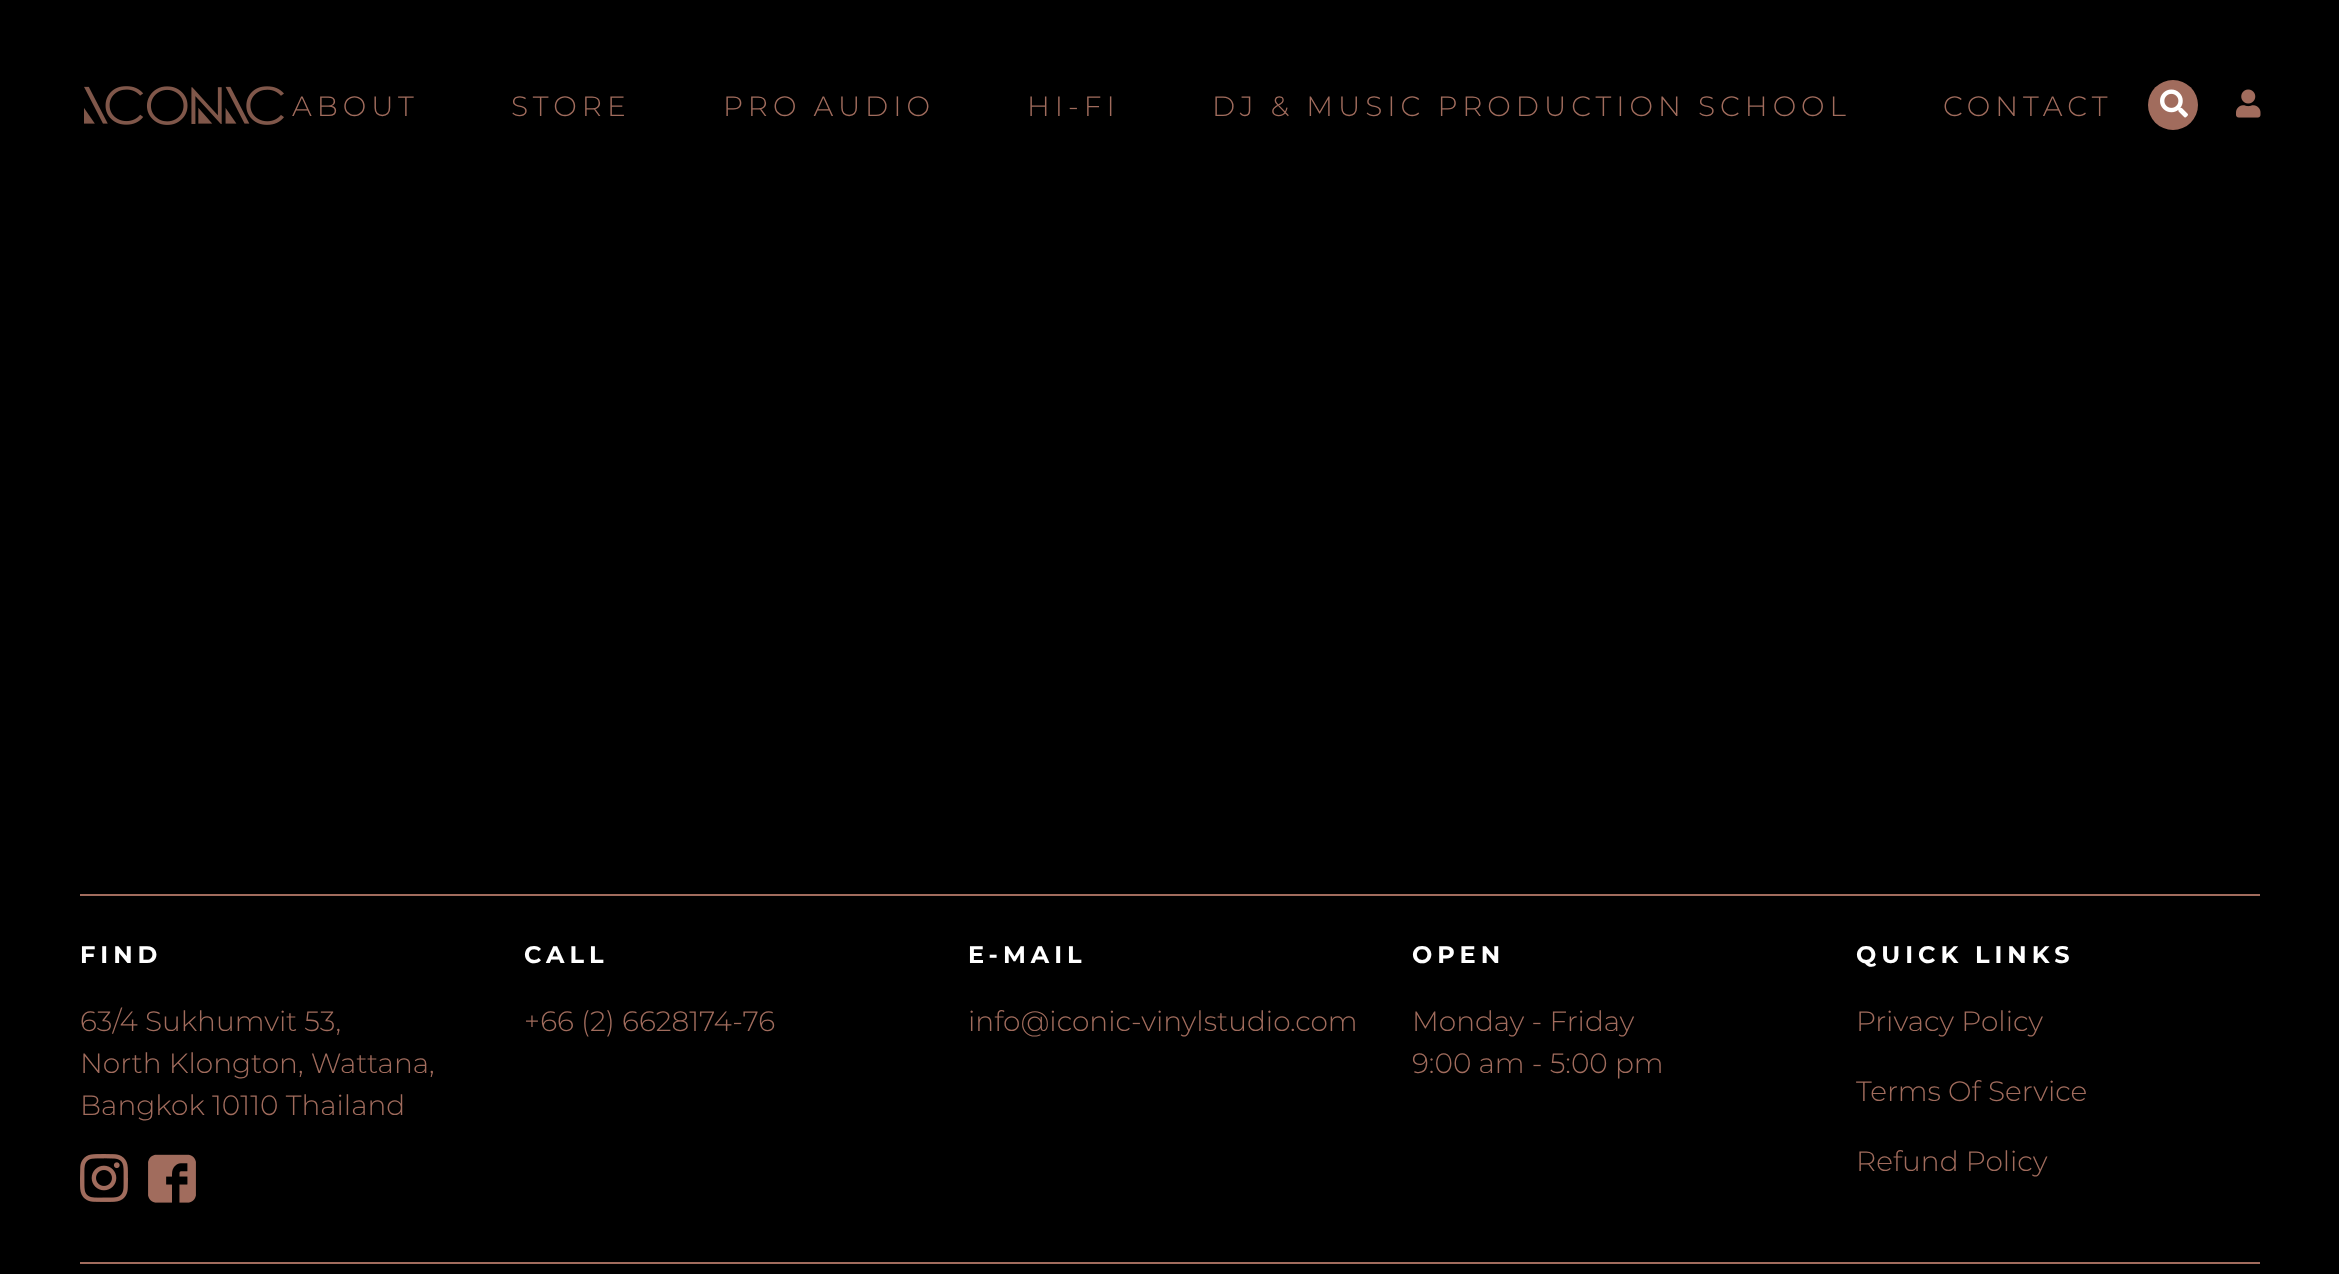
<svg xmlns="http://www.w3.org/2000/svg" width="2339" height="1274">
<rect width="100%" height="100%" fill="#000"/>
<image x="84" y="86" width="200" height="39" href="media/1.png"/>
<text x="292" y="116" style="font-family:Montserrat;font-size:28px;font-weight:300;letter-spacing:5px;fill:#a16c5d">ABOUT</text>
<text x="511" y="116" style="font-family:Montserrat;font-size:28px;font-weight:300;letter-spacing:5px;fill:#a16c5d">STORE</text>
<text x="723" y="116" style="font-family:Montserrat;font-size:28px;font-weight:300;letter-spacing:5px;fill:#a16c5d">PRO AUDIO</text>
<text x="1027" y="116" style="font-family:Montserrat;font-size:28px;font-weight:300;letter-spacing:5px;fill:#a16c5d">HI-FI</text>
<text x="1212" y="116" style="font-family:Montserrat;font-size:28px;font-weight:300;letter-spacing:5px;fill:#a16c5d">DJ &amp; MUSIC PRODUCTION SCHOOL</text>
<text x="1943" y="116" style="font-family:Montserrat;font-size:28px;font-weight:300;letter-spacing:5px;fill:#a16c5d">CONTACT</text>
<circle cx="2173" cy="105" r="25" fill="#a16c5d"/>
<image x="2160" y="89" width="28" height="29" href="media/2.png"/>
<image x="2236" y="89" width="25" height="29" href="media/3.png"/>
<rect x="80" y="894" width="2180" height="2" fill="#a16c5d"/>
<rect x="80" y="1262" width="2180" height="2" fill="#a16c5d"/>
<text x="80" y="963" style="font-family:Montserrat;font-size:24px;font-weight:bold;letter-spacing:5px;fill:#fff">FIND</text>
<text x="80" y="1031" style="font-family:Montserrat;font-size:28px;font-weight:300;fill:#a16c5d">63/4 Sukhumvit 53,</text>
<text x="80" y="1073" style="font-family:Montserrat;font-size:28px;font-weight:300;fill:#a16c5d">North Klongton, Wattana,</text>
<text x="80" y="1115" style="font-family:Montserrat;font-size:28px;font-weight:300;fill:#a16c5d">Bangkok 10110 Thailand</text>
<image x="80" y="1154" width="48" height="48" href="media/4.png"/>
<image x="148" y="1154" width="48" height="49" href="media/5.png"/>
<text x="524" y="963" style="font-family:Montserrat;font-size:24px;font-weight:bold;letter-spacing:5px;fill:#fff">CALL</text>
<text x="524" y="1031" style="font-family:Montserrat;font-size:28px;font-weight:300;fill:#a16c5d">+66 (2) 6628174-76</text>
<text x="968" y="963" style="font-family:Montserrat;font-size:24px;font-weight:bold;letter-spacing:5px;fill:#fff">E-MAIL</text>
<text x="968" y="1031" style="font-family:Montserrat;font-size:28px;font-weight:300;fill:#a16c5d">info@iconic-vinylstudio.com</text>
<text x="1412" y="963" style="font-family:Montserrat;font-size:24px;font-weight:bold;letter-spacing:5px;fill:#fff">OPEN</text>
<text x="1412" y="1031" style="font-family:Montserrat;font-size:28px;font-weight:300;fill:#a16c5d">Monday - Friday</text>
<text x="1412" y="1073" style="font-family:Montserrat;font-size:28px;font-weight:300;fill:#a16c5d">9:00 am - 5:00 pm</text>
<text x="1856" y="963" style="font-family:Montserrat;font-size:24px;font-weight:bold;letter-spacing:5px;fill:#fff">QUICK LINKS</text>
<text x="1856" y="1031" style="font-family:Montserrat;font-size:28px;font-weight:300;fill:#a16c5d">Privacy Policy</text>
<text x="1856" y="1101" style="font-family:Montserrat;font-size:28px;font-weight:300;fill:#a16c5d">Terms Of Service</text>
<text x="1856" y="1171" style="font-family:Montserrat;font-size:28px;font-weight:300;fill:#a16c5d">Refund Policy</text>
</svg>
